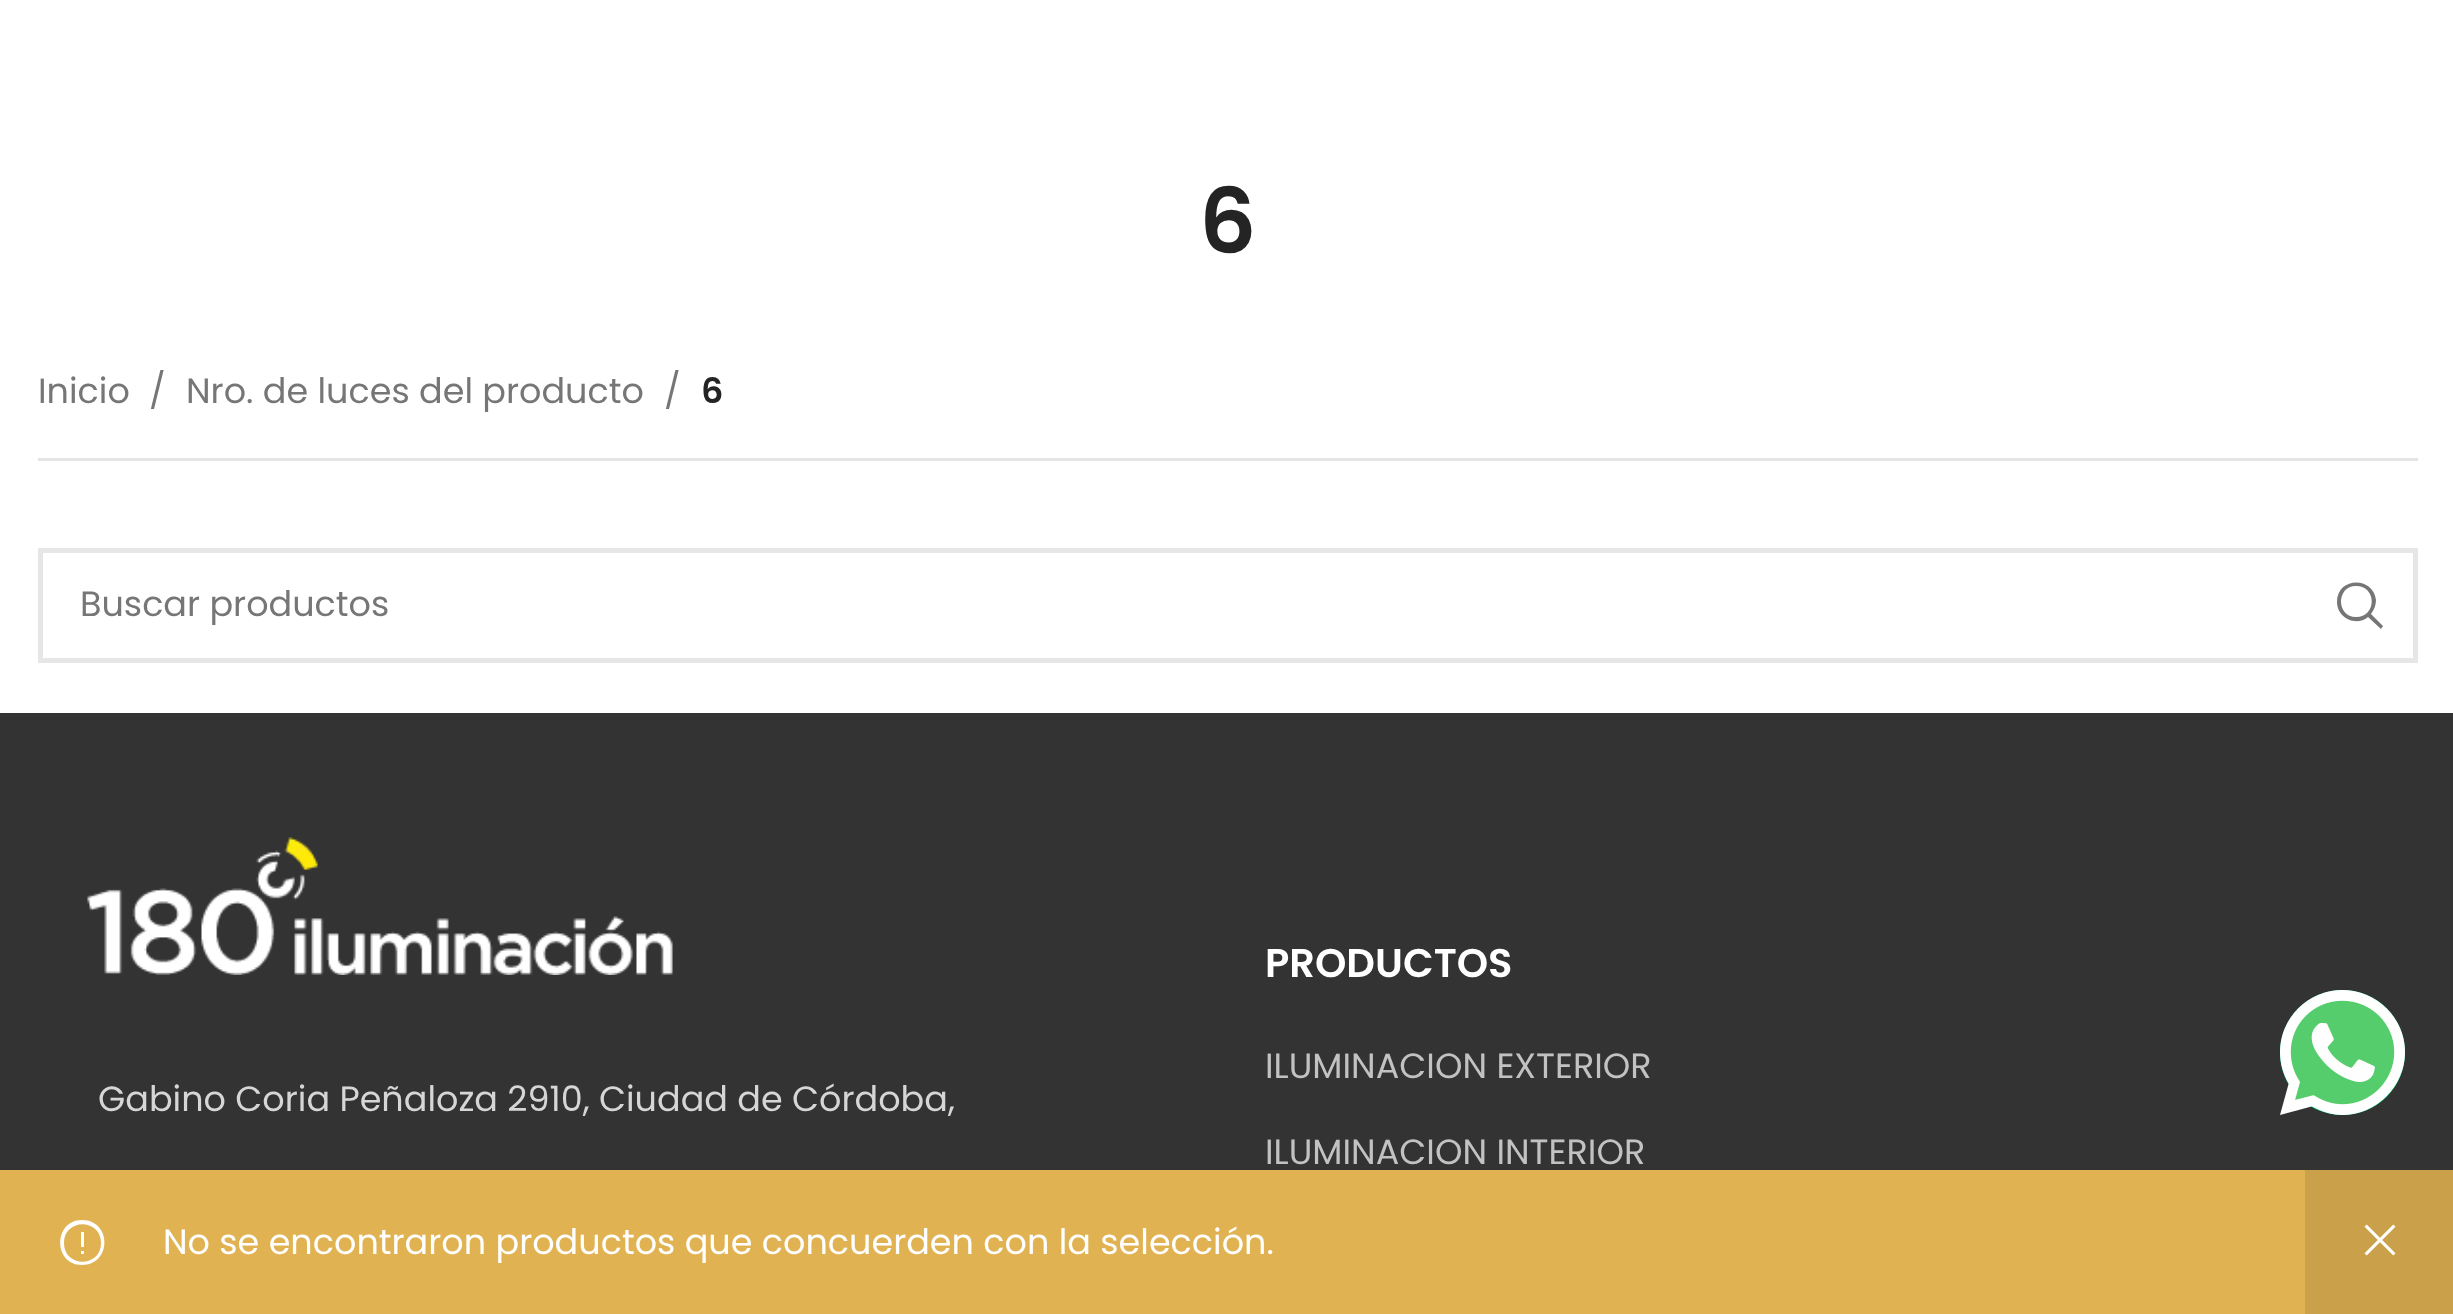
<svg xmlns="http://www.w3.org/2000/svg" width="2453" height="1314">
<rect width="100%" height="100%" fill="#fff"/>
<text x="1199" y="253" style="font-family:Poppins;font-size:90px;font-weight:600;fill:#242424">6</text>
<rect x="38" y="458" width="2380" height="3" fill="#e4e4e4"/>
<text x="38" y="403" style="font-family:Poppins;font-size:35px;fill:#767676">Inicio</text>
<text x="149" y="403" style="font-family:Poppins;font-size:35px;fill:#767676">/</text>
<text x="186" y="403" style="font-family:Poppins;font-size:35px;fill:#767676">Nro. de luces del producto</text>
<text x="664" y="403" style="font-family:Poppins;font-size:35px;fill:#767676">/</text>
<text x="701" y="403" style="font-family:Poppins;font-size:35px;font-weight:600;fill:#242424">6</text>
<rect x="40.5" y="550.5" width="2375" height="110" fill="none" stroke="#e6e6e6" stroke-width="5"/>
<text x="80" y="616" style="font-family:Poppins;font-size:35px;fill:#767676">Buscar productos</text>
<path d="M2337 602c0 16 19 25 31 15l13 12l2-3l-12-12c3-4 5-9 5-14c-3-24-39-23-39 2zm19 15c-20 0-20-31 0-31c21 0 21 31 0 31z" fill="#767676"/>
<rect y="1170" width="2305" height="144" fill="#e0b252"/>
<path d="M81 1232v15h3v-15zm0 19v3h3v-3zm1-31c-29 0-29 45 0 45c30 0 30-45 0-45zm-18 23c0-25 37-25 37 0c0 25-37 25-37 0z" fill="#fff"/>
<text x="163" y="1254" style="font-family:Poppins;font-size:35px;fill:#fff">No se encontraron productos que concuerden con la selección.</text>
<rect x="2305" y="1170" width="148" height="144" fill="#caa04a"/>
<image x="2364" y="1224" width="32" height="32" href="media/1.png"/>
<rect y="713" width="2453" height="457" fill="#333"/>
<image x="87" y="837" width="586" height="138" href="media/2.png"/>
<text x="98" y="1111" style="font-family:Poppins;font-size:35px;fill:#d6d6d6">Gabino Coria Peñaloza 2910, Ciudad de Córdoba,</text>
<text x="1265" y="977" style="font-family:Poppins;font-size:40px;font-weight:600;fill:#fff">PRODUCTOS</text>
<text x="1265" y="1078" style="font-family:Poppins;font-size:35px;fill:#c2c2c2">ILUMINACION EXTERIOR</text>
<text x="1265" y="1164" style="font-family:Poppins;font-size:35px;fill:#c2c2c2">ILUMINACION INTERIOR</text>
<circle cx="2342.5" cy="1052.5" r="62.5" fill="#01e675"/>
<image x="2280" y="990" width="125" height="125" href="media/3.png"/>
</svg>
